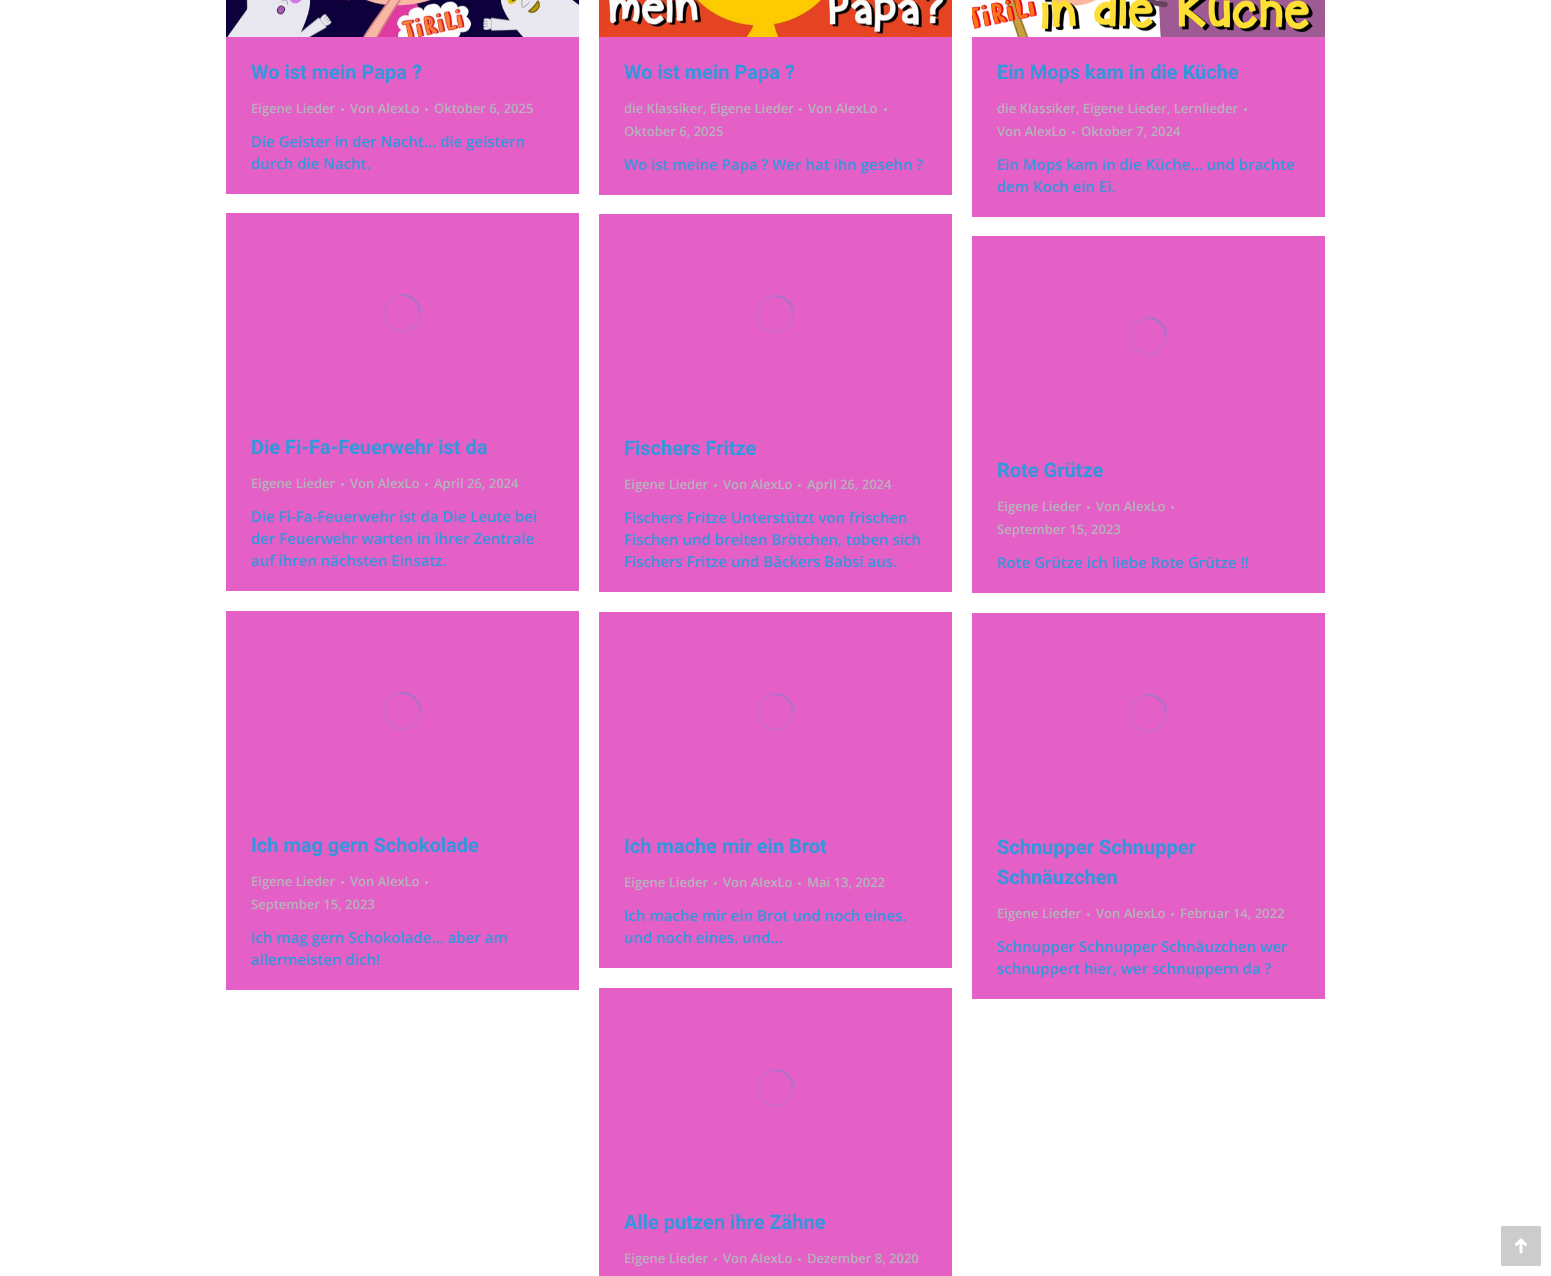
<svg xmlns="http://www.w3.org/2000/svg" width="1551" height="1276">
<rect width="100%" height="100%" fill="#fff"/>
<rect x="226" y="37" width="353" height="157" fill="#e560c6"/>
<image x="226" y="0" width="353" height="37" href="media/1.png"/>
<text x="251" y="79" style="font-family:Roboto;font-size:20px;font-weight:bold;fill:#3496db">Wo ist mein Papa ?</text>
<text x="251" y="113" style="font-family:Open Sans;font-size:13px;font-weight:600;fill:#b4b5bb">Eigene Lieder</text>
<circle cx="342.5" cy="109.5" r="1.5" fill="#b4b5bb"/>
<text x="350" y="113" style="font-family:Open Sans;font-size:13px;font-weight:600;fill:#b4b5bb">Von AlexLo</text>
<circle cx="426.5" cy="109.5" r="1.5" fill="#b4b5bb"/>
<text x="434" y="113" style="font-family:Open Sans;font-size:13px;font-weight:600;fill:#b4b5bb">Oktober 6, 2025</text>
<text x="251" y="147" style="font-family:Open Sans;font-size:15px;font-weight:600;fill:#3496db">Die Geister in der Nacht… die geistern</text>
<text x="251" y="169" style="font-family:Open Sans;font-size:15px;font-weight:600;fill:#3496db">durch die Nacht.</text>
<rect x="599" y="37" width="353" height="158" fill="#e560c6"/>
<image x="599" y="0" width="353" height="37" href="media/2.png"/>
<text x="624" y="79" style="font-family:Roboto;font-size:20px;font-weight:bold;fill:#3496db">Wo ist mein Papa ?</text>
<text x="624" y="113" style="font-family:Open Sans;font-size:13px;font-weight:600;fill:#b4b5bb">die Klassiker, Eigene Lieder</text>
<circle cx="800.5" cy="109.5" r="1.5" fill="#b4b5bb"/>
<text x="808" y="113" style="font-family:Open Sans;font-size:13px;font-weight:600;fill:#b4b5bb">Von AlexLo</text>
<circle cx="885.5" cy="109.5" r="1.5" fill="#b4b5bb"/>
<text x="624" y="136" style="font-family:Open Sans;font-size:13px;font-weight:600;fill:#b4b5bb">Oktober 6, 2025</text>
<text x="624" y="170" style="font-family:Open Sans;font-size:15px;font-weight:600;fill:#3496db">Wo ist meine Papa ? Wer hat ihn gesehn ?</text>
<rect x="972" y="37" width="353" height="180" fill="#e560c6"/>
<image x="972" y="0" width="353" height="37" href="media/3.png"/>
<text x="997" y="79" style="font-family:Roboto;font-size:20px;font-weight:bold;fill:#3496db">Ein Mops kam in die Küche</text>
<text x="997" y="113" style="font-family:Open Sans;font-size:13px;font-weight:600;fill:#b4b5bb">die Klassiker, Eigene Lieder, Lernlieder</text>
<circle cx="1245.5" cy="109.5" r="1.5" fill="#b4b5bb"/>
<text x="997" y="136" style="font-family:Open Sans;font-size:13px;font-weight:600;fill:#b4b5bb">Von AlexLo</text>
<circle cx="1073.5" cy="132.5" r="1.5" fill="#b4b5bb"/>
<text x="1081" y="136" style="font-family:Open Sans;font-size:13px;font-weight:600;fill:#b4b5bb">Oktober 7, 2024</text>
<text x="997" y="170" style="font-family:Open Sans;font-size:15px;font-weight:600;fill:#3496db">Ein Mops kam in die Küche… und brachte</text>
<text x="997" y="192" style="font-family:Open Sans;font-size:15px;font-weight:600;fill:#3496db">dem Koch ein Ei.</text>
<rect x="226" y="213" width="353" height="378" fill="#e560c6"/>
<circle cx="402" cy="313" r="18" fill="none" stroke="#cd67c9" stroke-width="2"/>
<path d="M420 313c0-10-8-18-18-18" fill="none" stroke="#3496db40" stroke-width="2"/>
<text x="251" y="454" style="font-family:Roboto;font-size:20px;font-weight:bold;fill:#3496db">Die Fi-Fa-Feuerwehr ist da</text>
<text x="251" y="488" style="font-family:Open Sans;font-size:13px;font-weight:600;fill:#b4b5bb">Eigene Lieder</text>
<circle cx="342.5" cy="484.5" r="1.5" fill="#b4b5bb"/>
<text x="350" y="488" style="font-family:Open Sans;font-size:13px;font-weight:600;fill:#b4b5bb">Von AlexLo</text>
<circle cx="426.5" cy="484.5" r="1.5" fill="#b4b5bb"/>
<text x="434" y="488" style="font-family:Open Sans;font-size:13px;font-weight:600;fill:#b4b5bb">April 26, 2024</text>
<text x="251" y="522" style="font-family:Open Sans;font-size:15px;font-weight:600;fill:#3496db">Die Fi-Fa-Feuerwehr ist da Die Leute bei</text>
<text x="251" y="544" style="font-family:Open Sans;font-size:15px;font-weight:600;fill:#3496db">der Feuerwehr warten in ihrer Zentrale</text>
<text x="251" y="566" style="font-family:Open Sans;font-size:15px;font-weight:600;fill:#3496db">auf ihren nächsten Einsatz.</text>
<rect x="599" y="214" width="353" height="378" fill="#e560c6"/>
<circle cx="775" cy="314" r="18" fill="none" stroke="#cd67c9" stroke-width="2"/>
<path d="M793 314c0-10-8-18-18-18" fill="none" stroke="#3496db40" stroke-width="2"/>
<text x="624" y="455" style="font-family:Roboto;font-size:20px;font-weight:bold;fill:#3496db">Fischers Fritze</text>
<text x="624" y="489" style="font-family:Open Sans;font-size:13px;font-weight:600;fill:#b4b5bb">Eigene Lieder</text>
<circle cx="715.5" cy="485.5" r="1.5" fill="#b4b5bb"/>
<text x="723" y="489" style="font-family:Open Sans;font-size:13px;font-weight:600;fill:#b4b5bb">Von AlexLo</text>
<circle cx="799.5" cy="485.5" r="1.5" fill="#b4b5bb"/>
<text x="807" y="489" style="font-family:Open Sans;font-size:13px;font-weight:600;fill:#b4b5bb">April 26, 2024</text>
<text x="624" y="523" style="font-family:Open Sans;font-size:15px;font-weight:600;fill:#3496db">Fischers Fritze Unterstützt von frischen</text>
<text x="624" y="545" style="font-family:Open Sans;font-size:15px;font-weight:600;fill:#3496db">Fischen und breiten Brötchen, toben sich</text>
<text x="624" y="567" style="font-family:Open Sans;font-size:15px;font-weight:600;fill:#3496db">Fischers Fritze und Bäckers Babsi aus.</text>
<rect x="972" y="236" width="353" height="357" fill="#e560c6"/>
<circle cx="1148" cy="336" r="18" fill="none" stroke="#cd67c9" stroke-width="2"/>
<path d="M1166 336c0-10-8-18-18-18" fill="none" stroke="#3496db40" stroke-width="2"/>
<text x="997" y="477" style="font-family:Roboto;font-size:20px;font-weight:bold;fill:#3496db">Rote Grütze</text>
<text x="997" y="511" style="font-family:Open Sans;font-size:13px;font-weight:600;fill:#b4b5bb">Eigene Lieder</text>
<circle cx="1088.5" cy="507.5" r="1.5" fill="#b4b5bb"/>
<text x="1096" y="511" style="font-family:Open Sans;font-size:13px;font-weight:600;fill:#b4b5bb">Von AlexLo</text>
<circle cx="1172.5" cy="507.5" r="1.5" fill="#b4b5bb"/>
<text x="997" y="534" style="font-family:Open Sans;font-size:13px;font-weight:600;fill:#b4b5bb">September 15, 2023</text>
<text x="997" y="568" style="font-family:Open Sans;font-size:15px;font-weight:600;fill:#3496db">Rote Grütze ich liebe Rote Grütze !!</text>
<rect x="226" y="611" width="353" height="379" fill="#e560c6"/>
<circle cx="402" cy="711" r="18" fill="none" stroke="#cd67c9" stroke-width="2"/>
<path d="M420 711c0-10-8-18-18-18" fill="none" stroke="#3496db40" stroke-width="2"/>
<text x="251" y="852" style="font-family:Roboto;font-size:20px;font-weight:bold;fill:#3496db">Ich mag gern Schokolade</text>
<text x="251" y="886" style="font-family:Open Sans;font-size:13px;font-weight:600;fill:#b4b5bb">Eigene Lieder</text>
<circle cx="342.5" cy="882.5" r="1.5" fill="#b4b5bb"/>
<text x="350" y="886" style="font-family:Open Sans;font-size:13px;font-weight:600;fill:#b4b5bb">Von AlexLo</text>
<circle cx="426.5" cy="882.5" r="1.5" fill="#b4b5bb"/>
<text x="251" y="909" style="font-family:Open Sans;font-size:13px;font-weight:600;fill:#b4b5bb">September 15, 2023</text>
<text x="251" y="943" style="font-family:Open Sans;font-size:15px;font-weight:600;fill:#3496db">Ich mag gern Schokolade… aber am</text>
<text x="251" y="965" style="font-family:Open Sans;font-size:15px;font-weight:600;fill:#3496db">allermeisten dich!</text>
<rect x="599" y="612" width="353" height="356" fill="#e560c6"/>
<circle cx="775" cy="712" r="18" fill="none" stroke="#cd67c9" stroke-width="2"/>
<path d="M793 712c0-10-8-18-18-18" fill="none" stroke="#3496db40" stroke-width="2"/>
<text x="624" y="853" style="font-family:Roboto;font-size:20px;font-weight:bold;fill:#3496db">Ich mache mir ein Brot</text>
<text x="624" y="887" style="font-family:Open Sans;font-size:13px;font-weight:600;fill:#b4b5bb">Eigene Lieder</text>
<circle cx="715.5" cy="883.5" r="1.5" fill="#b4b5bb"/>
<text x="723" y="887" style="font-family:Open Sans;font-size:13px;font-weight:600;fill:#b4b5bb">Von AlexLo</text>
<circle cx="799.5" cy="883.5" r="1.5" fill="#b4b5bb"/>
<text x="807" y="887" style="font-family:Open Sans;font-size:13px;font-weight:600;fill:#b4b5bb">Mai 13, 2022</text>
<text x="624" y="921" style="font-family:Open Sans;font-size:15px;font-weight:600;fill:#3496db">Ich mache mir ein Brot und noch eines.</text>
<text x="624" y="943" style="font-family:Open Sans;font-size:15px;font-weight:600;fill:#3496db">und noch eines. und…</text>
<rect x="972" y="613" width="353" height="386" fill="#e560c6"/>
<circle cx="1148" cy="713" r="18" fill="none" stroke="#cd67c9" stroke-width="2"/>
<path d="M1166 713c0-10-8-18-18-18" fill="none" stroke="#3496db40" stroke-width="2"/>
<text x="997" y="854" style="font-family:Roboto;font-size:20px;font-weight:bold;fill:#3496db">Schnupper Schnupper</text>
<text x="997" y="884" style="font-family:Roboto;font-size:20px;font-weight:bold;fill:#3496db">Schnäuzchen</text>
<text x="997" y="918" style="font-family:Open Sans;font-size:13px;font-weight:600;fill:#b4b5bb">Eigene Lieder</text>
<circle cx="1088.5" cy="914.5" r="1.5" fill="#b4b5bb"/>
<text x="1096" y="918" style="font-family:Open Sans;font-size:13px;font-weight:600;fill:#b4b5bb">Von AlexLo</text>
<circle cx="1172.5" cy="914.5" r="1.5" fill="#b4b5bb"/>
<text x="1180" y="918" style="font-family:Open Sans;font-size:13px;font-weight:600;fill:#b4b5bb">Februar 14, 2022</text>
<text x="997" y="952" style="font-family:Open Sans;font-size:15px;font-weight:600;fill:#3496db">Schnupper Schnupper Schnäuzchen wer</text>
<text x="997" y="974" style="font-family:Open Sans;font-size:15px;font-weight:600;fill:#3496db">schnuppert hier, wer schnuppern da ?</text>
<rect x="599" y="988" width="353" height="288" fill="#e560c6"/>
<circle cx="775" cy="1088" r="18" fill="none" stroke="#cd67c9" stroke-width="2"/>
<path d="M793 1088c0-10-8-18-18-18" fill="none" stroke="#3496db40" stroke-width="2"/>
<text x="624" y="1229" style="font-family:Roboto;font-size:20px;font-weight:bold;fill:#3496db">Alle putzen ihre Zähne</text>
<text x="624" y="1263" style="font-family:Open Sans;font-size:13px;font-weight:600;fill:#b4b5bb">Eigene Lieder</text>
<circle cx="715.5" cy="1259.5" r="1.5" fill="#b4b5bb"/>
<text x="723" y="1263" style="font-family:Open Sans;font-size:13px;font-weight:600;fill:#b4b5bb">Von AlexLo</text>
<circle cx="799.5" cy="1259.5" r="1.5" fill="#b4b5bb"/>
<text x="807" y="1263" style="font-family:Open Sans;font-size:13px;font-weight:600;fill:#b4b5bb">Dezember 8, 2020</text>
<rect x="1501" y="1226" width="40" height="40" rx="1" fill="#ccc"/>
<image x="1515" y="1238" width="12" height="16" href="media/4.png"/>
</svg>
